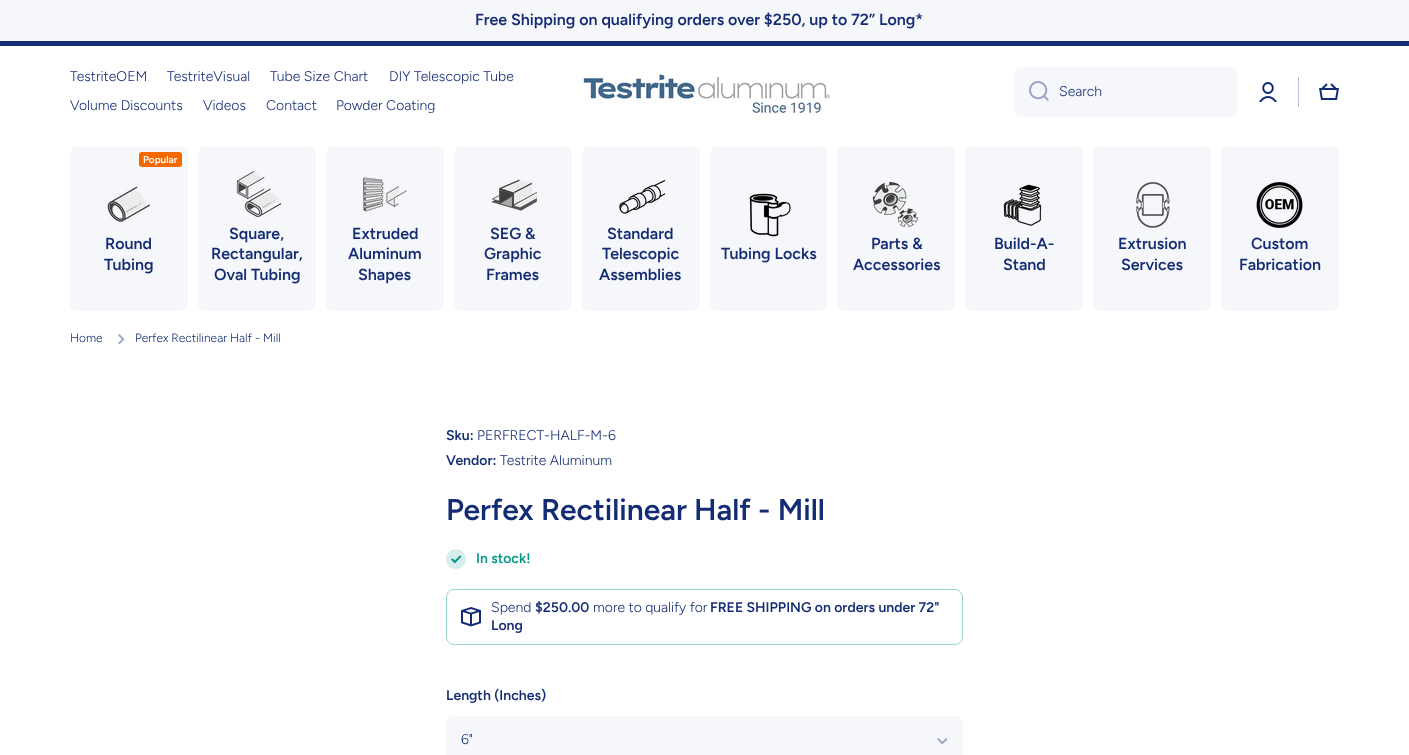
<svg xmlns="http://www.w3.org/2000/svg" width="1409" height="755">
<rect width="100%" height="100%" fill="#fff"/>
<rect width="1409" height="41" fill="#f6f7fa"/>
<text x="475" y="25" style="font-family:Figtree;font-size:16px;font-weight:600;fill:#142c73">Free Shipping on qualifying orders over $250, up to 72” Long*</text>
<rect y="41" width="1409" height="5" fill="#142c73"/>
<text x="70" y="81" style="font-family:Figtree;font-size:14px;font-weight:300;fill:#142c73">TestriteOEM</text>
<text x="167" y="81" style="font-family:Figtree;font-size:14px;font-weight:300;fill:#142c73">TestriteVisual</text>
<text x="270" y="81" style="font-family:Figtree;font-size:14px;font-weight:300;fill:#142c73">Tube Size Chart</text>
<text x="389" y="81" style="font-family:Figtree;font-size:14px;font-weight:300;fill:#142c73">DIY Telescopic Tube</text>
<text x="70" y="110" style="font-family:Figtree;font-size:14px;font-weight:300;fill:#142c73">Volume Discounts</text>
<text x="203" y="110" style="font-family:Figtree;font-size:14px;font-weight:300;fill:#142c73">Videos</text>
<text x="266" y="110" style="font-family:Figtree;font-size:14px;font-weight:300;fill:#142c73">Contact</text>
<text x="336" y="110" style="font-family:Figtree;font-size:14px;font-weight:300;fill:#142c73">Powder Coating</text>
<image x="580" y="74" width="250" height="40" href="media/1.png"/>
<rect x="1014" y="67" width="224" height="50" rx="8" fill="#f6f7fa"/>
<image x="1029" y="81" width="20" height="20" href="media/2.png"/>
<text x="1059" y="96" style="font-family:Figtree;font-size:14px;font-weight:300;fill:#142c73">Search</text>
<image x="1259" y="82" width="18" height="20" href="media/3.png"/>
<rect x="1298" y="77" width="1" height="30" fill="#b9c0d5"/>
<image x="1319" y="83" width="20" height="17" href="media/4.png"/>
<rect x="70" y="146" width="118" height="165" rx="8" fill="#f6f7fa"/>
<rect x="139" y="152" width="43" height="15" rx="3" fill="#f46800"/>
<text x="143" y="163" style="font-family:Figtree;font-size:10px;font-weight:600;fill:#fff">Popular</text>
<image x="107" y="186" width="43" height="36" href="media/5.png"/>
<text x="105" y="249" style="font-family:Figtree;font-size:16px;font-weight:600;fill:#142c73">Round</text>
<text x="104" y="270" style="font-family:Figtree;font-size:16px;font-weight:600;fill:#142c73">Tubing</text>
<rect x="198" y="146" width="118" height="165" rx="8" fill="#f6f7fa"/>
<image x="236" y="171" width="45" height="46" href="media/6.png"/>
<text x="229" y="239" style="font-family:Figtree;font-size:16px;font-weight:600;fill:#142c73">Square,</text>
<text x="211" y="259" style="font-family:Figtree;font-size:16px;font-weight:600;fill:#142c73">Rectangular,</text>
<text x="214" y="280" style="font-family:Figtree;font-size:16px;font-weight:600;fill:#142c73">Oval Tubing</text>
<rect x="326" y="146" width="118" height="165" rx="8" fill="#f6f7fa"/>
<image x="363" y="177" width="44" height="35" href="media/7.png"/>
<text x="352" y="239" style="font-family:Figtree;font-size:16px;font-weight:600;fill:#142c73">Extruded</text>
<text x="348" y="259" style="font-family:Figtree;font-size:16px;font-weight:600;fill:#142c73">Aluminum</text>
<text x="358" y="280" style="font-family:Figtree;font-size:16px;font-weight:600;fill:#142c73">Shapes</text>
<rect x="454" y="146" width="118" height="165" rx="8" fill="#f6f7fa"/>
<image x="491" y="179" width="46" height="32" href="media/8.png"/>
<text x="490" y="239" style="font-family:Figtree;font-size:16px;font-weight:600;fill:#142c73">SEG &amp;</text>
<text x="484" y="259" style="font-family:Figtree;font-size:16px;font-weight:600;fill:#142c73">Graphic</text>
<text x="486" y="280" style="font-family:Figtree;font-size:16px;font-weight:600;fill:#142c73">Frames</text>
<rect x="582" y="146" width="118" height="165" rx="8" fill="#f6f7fa"/>
<image x="619" y="180" width="46" height="34" href="media/9.png"/>
<text x="607" y="239" style="font-family:Figtree;font-size:16px;font-weight:600;fill:#142c73">Standard</text>
<text x="602" y="259" style="font-family:Figtree;font-size:16px;font-weight:600;fill:#142c73">Telescopic</text>
<text x="599" y="280" style="font-family:Figtree;font-size:16px;font-weight:600;fill:#142c73">Assemblies</text>
<rect x="710" y="146" width="117" height="165" rx="8" fill="#f6f7fa"/>
<image x="749" y="193" width="42" height="44" href="media/10.png"/>
<text x="721" y="259" style="font-family:Figtree;font-size:16px;font-weight:600;fill:#142c73">Tubing Locks</text>
<rect x="837" y="146" width="118" height="165" rx="8" fill="#f6f7fa"/>
<image x="872" y="181" width="46" height="46" href="media/11.png"/>
<text x="871" y="249" style="font-family:Figtree;font-size:16px;font-weight:600;fill:#142c73">Parts &amp;</text>
<text x="853" y="270" style="font-family:Figtree;font-size:16px;font-weight:600;fill:#142c73">Accessories</text>
<rect x="965" y="146" width="118" height="165" rx="8" fill="#f6f7fa"/>
<image x="1003" y="184" width="39" height="42" href="media/12.png"/>
<text x="994" y="249" style="font-family:Figtree;font-size:16px;font-weight:600;fill:#142c73">Build-A-</text>
<text x="1003" y="270" style="font-family:Figtree;font-size:16px;font-weight:600;fill:#142c73">Stand</text>
<rect x="1093" y="146" width="118" height="165" rx="8" fill="#f6f7fa"/>
<image x="1136" y="182" width="34" height="46" href="media/13.png"/>
<text x="1118" y="249" style="font-family:Figtree;font-size:16px;font-weight:600;fill:#142c73">Extrusion</text>
<text x="1121" y="270" style="font-family:Figtree;font-size:16px;font-weight:600;fill:#142c73">Services</text>
<rect x="1221" y="146" width="118" height="165" rx="8" fill="#f6f7fa"/>
<image x="1256" y="182" width="47" height="46" href="media/14.png"/>
<text x="1251" y="249" style="font-family:Figtree;font-size:16px;font-weight:600;fill:#142c73">Custom</text>
<text x="1239" y="270" style="font-family:Figtree;font-size:16px;font-weight:600;fill:#142c73">Fabrication</text>
<text x="70" y="342" style="font-family:Figtree;font-size:12px;font-weight:300;fill:#142c73">Home</text>
<image x="118" y="334" width="7" height="11" href="media/15.png"/>
<text x="135" y="342" style="font-family:Figtree;font-size:12px;font-weight:300;fill:#142c73">Perfex Rectilinear Half - Mill</text>
<text x="446" y="440" style="font-family:Figtree;font-size:14px;font-weight:600;fill:#142c73">Sku:</text>
<text x="477" y="440" style="font-family:Figtree;font-size:14px;font-weight:300;fill:#142c73">PERFRECT-HALF-M-6</text>
<text x="446" y="465" style="font-family:Figtree;font-size:14px;font-weight:600;fill:#142c73">Vendor:</text>
<text x="500" y="465" style="font-family:Figtree;font-size:14px;font-weight:300;fill:#142c73">Testrite Aluminum</text>
<text x="446" y="520" style="font-family:Figtree;font-size:30px;font-weight:600;fill:#142c73">Perfex Rectilinear Half - Mill</text>
<image x="446" y="549" width="20" height="20" href="media/16.png"/>
<text x="476" y="563" style="font-family:Figtree;font-size:14px;font-weight:600;fill:#009688">In stock!</text>
<rect x="446.5" y="589.5" width="516" height="55" rx="7.5" fill="none" stroke="#99d5cf"/>
<image x="461" y="607" width="20" height="20" href="media/17.png"/>
<text x="491" y="612" style="font-family:Figtree;font-size:14px;font-weight:300;fill:#142c73">Spend</text>
<text x="535" y="612" style="font-family:Figtree;font-size:14px;font-weight:600;fill:#142c73">$250.00</text>
<text x="593" y="612" style="font-family:Figtree;font-size:14px;font-weight:300;fill:#142c73">more to qualify for</text>
<text x="710" y="612" style="font-family:Figtree;font-size:14px;font-weight:600;fill:#142c73">FREE SHIPPING on orders under 72"</text>
<text x="491" y="630" style="font-family:Figtree;font-size:14px;font-weight:600;fill:#142c73">Long</text>
<text x="446" y="700" style="font-family:Figtree;font-size:14px;font-weight:600;fill:#142c73">Length (Inches)</text>
<rect x="446" y="716" width="517" height="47" rx="8" fill="#f6f7fa"/>
<text x="461" y="744" style="font-family:Figtree;font-size:14px;font-weight:300;fill:#142c73">6"</text>
<image x="937" y="738" width="11" height="7" href="media/18.png"/>
</svg>
